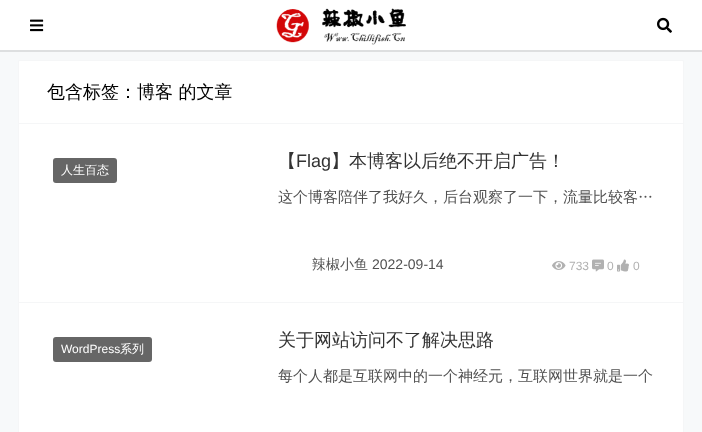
<svg xmlns="http://www.w3.org/2000/svg" width="702" height="432">
<rect width="100%" height="100%" fill="#f7f9fa"/>
<rect x="-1" width="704" height="52" fill="#0000001a" filter="blur(0.5px)"/>
<rect width="702" height="50" fill="#fff"/>
<image x="30" y="19" width="14" height="13" href="media/1.png"/>
<image x="276" y="8" width="130" height="37" href="media/2.png"/>
<image x="657" y="17" width="15" height="16" href="media/3.png"/>
<rect x="18.5" y="60.5" width="665" height="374" rx="1.5" fill="none" stroke="#f5f6f7"/>
<path d="M20 61h662c.5 0 1 .5 1 1v62h-664v-62c0-.5 .5-1 1-1z" fill="#fff"/>
<rect x="19" y="123" width="664" height="1" fill="#f5f6f7"/>
<text x="47" y="98" style="font-family:WenQuanYi Zen Hei;font-size:18px;font-weight:500;fill:#000">包含标签：博客 的文章</text>
<rect x="19" y="124" width="664" height="178" fill="#fff"/>
<rect x="19" y="302" width="664" height="1" fill="#f5f6f7"/>
<rect x="53" y="158" width="64" height="25" rx="3" fill="#666"/>
<text x="61" y="174" style="font-family:WenQuanYi Zen Hei;font-size:12px;font-weight:500;fill:#fff">人生百态</text>
<text x="278" y="167" style="font-family:WenQuanYi Zen Hei;font-size:18px;font-weight:500;fill:#333">【</text>
<text x="296" y="167" style="font-family:Liberation Sans;font-size:18px;fill:#333">Flag</text>
<text x="331" y="167" style="font-family:WenQuanYi Zen Hei;font-size:18px;font-weight:500;fill:#333">】本博客以后绝不开启广告！</text>
<text x="278" y="202" style="font-family:WenQuanYi Zen Hei;font-size:15px;font-weight:500;fill:#515151">这个博客陪伴了我好久，后台观察了一下，流量比较客…</text>
<text x="312" y="269" style="font-family:WenQuanYi Zen Hei;font-size:14px;font-weight:500;fill:#515151">辣椒小鱼</text>
<text x="372" y="269" style="font-family:Liberation Sans;font-size:14px;fill:#515151">2022-09-14</text>
<image x="552" y="261" width="14" height="9" href="media/4.png"/>
<text x="569" y="270" style="font-family:Liberation Sans;font-size:12px;fill:#b1b1b1">733</text>
<image x="592" y="259" width="12" height="13" href="media/5.png"/>
<text x="607" y="270" style="font-family:Liberation Sans;font-size:12px;fill:#b1b1b1">0</text>
<image x="617" y="259" width="12" height="13" href="media/6.png"/>
<text x="633" y="270" style="font-family:Liberation Sans;font-size:12px;fill:#b1b1b1">0</text>
<rect x="19" y="303" width="664" height="129" fill="#fff"/>
<rect x="53" y="337" width="99" height="25" rx="3" fill="#666"/>
<text x="61" y="353" style="font-family:Liberation Sans;font-size:12px;fill:#fff">WordPress</text>
<text x="120" y="353" style="font-family:WenQuanYi Zen Hei;font-size:12px;font-weight:500;fill:#fff">系列</text>
<text x="278" y="346" style="font-family:WenQuanYi Zen Hei;font-size:18px;font-weight:500;fill:#333">关于网站访问不了解决思路</text>
<text x="278" y="381" style="font-family:WenQuanYi Zen Hei;font-size:15px;font-weight:500;fill:#515151">每个人都是互联网中的一个神经元，互联网世界就是一个</text>
</svg>
